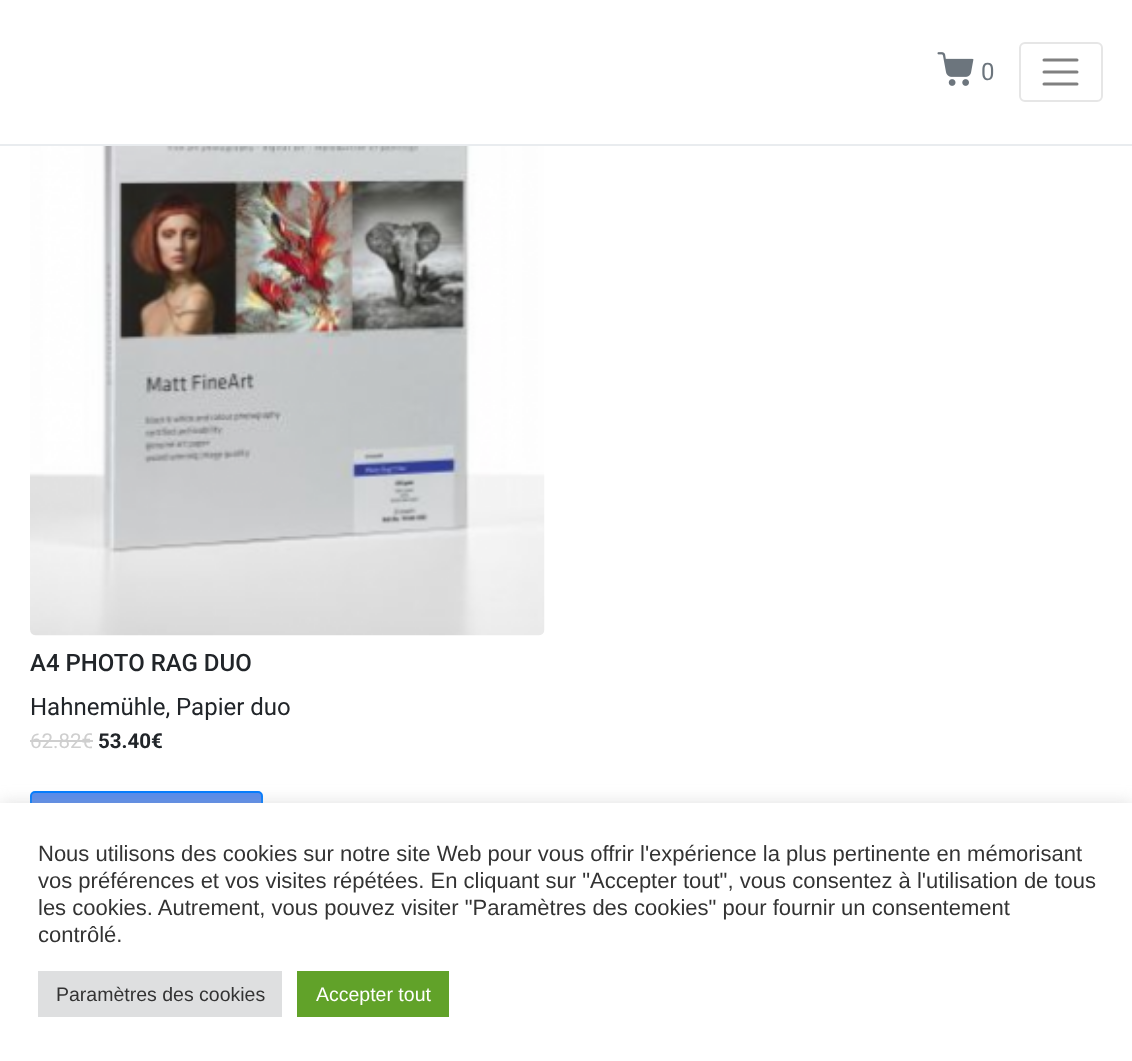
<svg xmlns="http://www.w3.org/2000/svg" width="1132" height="1061">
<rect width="100%" height="100%" fill="#fff"/>
<rect y="144" width="1132" height="2" fill="#e9ecef"/>
<image x="937" y="52" width="37" height="34" href="media/1.png"/>
<text x="981" y="80" style="font-family:Roboto;font-size:24px;fill:#6c757d">0</text>
<rect x="1020" y="43" width="82" height="58" rx="5" fill="none" stroke="#e6e6e6" stroke-width="2"/>
<path d="M1044 60h33m-33 12h33m-33 12h33" fill="none" stroke="#808080" stroke-width="3" stroke-linecap="round"/>
<image x="30" y="146" width="515" height="490" href="media/2.png"/>
<text x="30" y="671" style="font-family:Roboto;font-size:24px;font-weight:500;fill:#212529">A4 PHOTO RAG DUO</text>
<text x="30" y="715" style="font-family:Roboto;font-size:24px;fill:#212529">Hahnemühle, Papier duo</text>
<text x="30" y="748" style="font-family:Roboto;font-size:20.5px;fill:#cfcfcf">62.82€</text>
<rect x="30" y="740" width="63" height="2" fill="#cfcfcf"/>
<text x="98" y="748" style="font-family:Roboto;font-size:20.5px;font-weight:bold;fill:#212529">53.40€</text>
<rect x="31" y="792" width="231" height="55" rx="4" fill="#558aec" stroke="#007bff" stroke-width="2"/>
<rect y="801" width="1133" height="260" fill="#acabab4d" filter="blur(7.5px)"/>
<rect y="803" width="1132" height="258" fill="#fff"/>
<text x="38" y="861" style="font-family:Liberation Sans;font-size:22px;fill:#333">Nous utilisons des cookies sur notre site Web pour vous offrir l'expérience la plus pertinente en mémorisant</text>
<text x="38" y="888" style="font-family:Liberation Sans;font-size:22px;fill:#333">vos préférences et vos visites répétées. En cliquant sur "Accepter tout", vous consentez à l'utilisation de tous</text>
<text x="38" y="915" style="font-family:Liberation Sans;font-size:22px;fill:#333">les cookies. Autrement, vous pouvez visiter "Paramètres des cookies" pour fournir un consentement</text>
<text x="38" y="942" style="font-family:Liberation Sans;font-size:22px;fill:#333">contrôlé.</text>
<rect x="38" y="971" width="244" height="46" fill="#dedfe0"/>
<text x="56" y="1001" style="font-family:Liberation Sans;font-size:19.5px;fill:#333">Paramètres des cookies</text>
<rect x="297" y="971" width="152" height="46" fill="#61a229"/>
<text x="316" y="1001" style="font-family:Liberation Sans;font-size:19.5px;fill:#fff">Accepter tout</text>
</svg>
